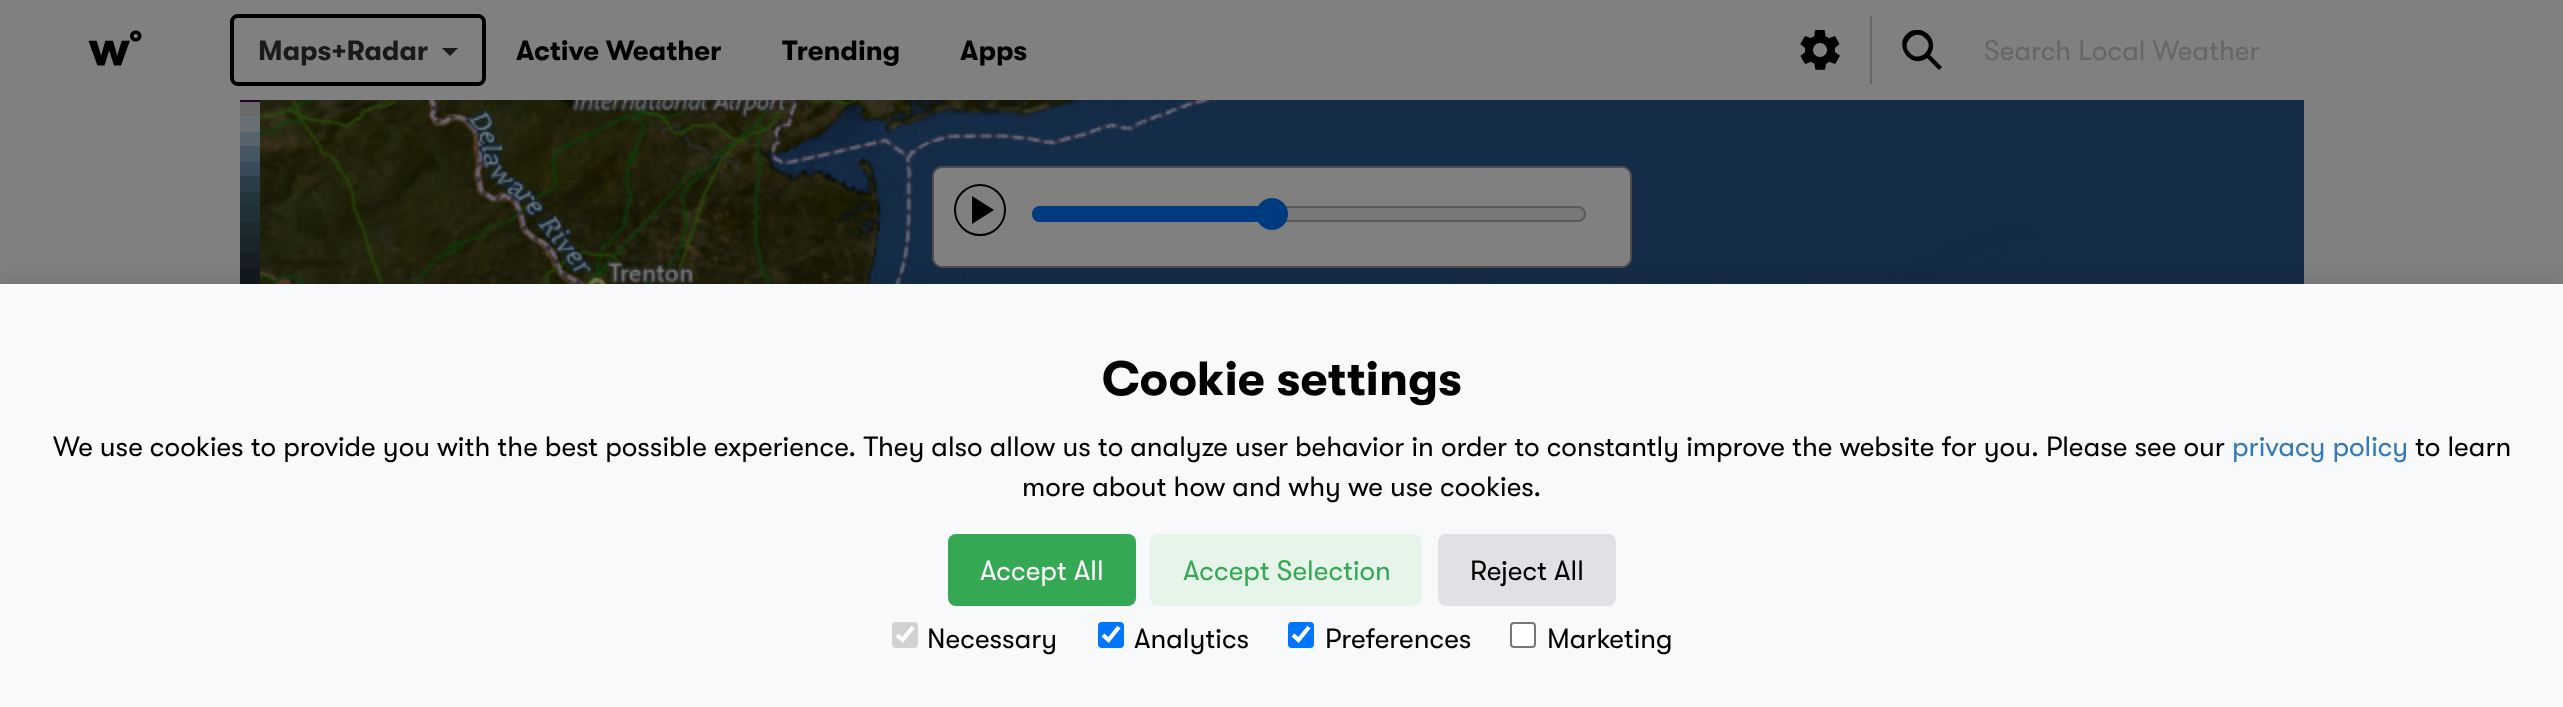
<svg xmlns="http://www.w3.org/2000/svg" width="2563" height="707">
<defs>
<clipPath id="clip1"><rect x="1902" y="30" width="40" height="40"/></clipPath>
</defs>
<rect width="100%" height="100%" fill="#808080"/>
<image x="88" y="30" width="54" height="36" href="media/1.png"/>
<rect x="232" y="16" width="252" height="68" rx="6" fill="none" stroke="#000" stroke-width="4"/>
<text x="258" y="60" style="font-family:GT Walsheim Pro;font-size:28px;font-weight:bold;fill:#1a1a1a">Maps+Radar</text>
<path d="M442 48h16l-8 8z" fill="#1a1a1a"/>
<text x="516" y="60" style="font-family:GT Walsheim Pro;font-size:28px;font-weight:bold;fill:#000">Active Weather</text>
<text x="782" y="60" style="font-family:GT Walsheim Pro;font-size:28px;font-weight:bold;fill:#000">Trending</text>
<text x="960" y="60" style="font-family:GT Walsheim Pro;font-size:28px;font-weight:bold;fill:#000">Apps</text>
<image x="1800" y="30" width="40" height="40" href="media/2.png"/>
<rect x="1870" y="16" width="2" height="68" fill="#666"/>
<g clip-path="url(#clip1)">
<path d="M1942 67l-12-12c6-8 3-19-5-23c-4-3-9-3-14-1c-20 10-2 40 16 27l12 12zm-32-14c-10-9 5-25 15-15c11 9-5 26-15 15z" fill="#010101"/>
</g>
<text x="1984" y="60" style="font-family:GT Walsheim Pro;font-size:28px;fill:#666">Search Local Weather</text>
<rect x="240" y="100" width="20" height="2" fill="#240024"/>
<rect x="240" y="102" width="20" height="14" fill="#6b6b6b"/>
<rect x="240" y="116" width="20" height="16" fill="#697073"/>
<rect x="240" y="132" width="20" height="14" fill="#58646b"/>
<rect x="240" y="146" width="20" height="16" fill="#445760"/>
<rect x="240" y="162" width="20" height="14" fill="#364d59"/>
<rect x="240" y="176" width="20" height="16" fill="#293e46"/>
<rect x="240" y="192" width="20" height="14" fill="#23353c"/>
<rect x="240" y="206" width="20" height="16" fill="#203036"/>
<rect x="240" y="222" width="20" height="16" fill="#1c2a30"/>
<rect x="240" y="238" width="20" height="14" fill="#19252a"/>
<rect x="240" y="252" width="20" height="16" fill="#162024"/>
<rect x="240" y="268" width="20" height="14" fill="#131a1e"/>
<rect x="240" y="282" width="20" height="2" fill="#11181e"/>
<image x="260" y="100" width="414" height="184" href="media/3.png"/>
<image x="674" y="100" width="512" height="184" href="media/4.png"/>
<image x="1186" y="100" width="512" height="184" href="media/5.png"/>
<image x="1698" y="100" width="512" height="184" href="media/6.png"/>
<image x="2210" y="100" width="94" height="184" href="media/7.png"/>
<rect x="933" y="167" width="698" height="100" rx="9" fill="#808080" stroke="#4d4d4d" stroke-width="2"/>
<circle cx="980" cy="210" r="25" fill="none" stroke="#000" stroke-width="2"/>
<path d="M972 196l22 14l-22 14z" fill="#000"/>
<rect x="1033" y="207" width="552" height="14" rx="7" fill="#787878" stroke="#595959" stroke-width="2"/>
<path d="M1040 206h232v16h-232c-4.5 0-8-3.5-8-8c0-4.5 3.5-8 8-8z" fill="#003b80"/>
<circle cx="1272" cy="214" r="16" fill="#003b80"/>
<rect y="280" width="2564" height="424" fill="#0000001a" filter="blur(10px)"/>
<rect y="284" width="2563" height="423" fill="#f8f9fa"/>
<text x="1102" y="395" style="font-family:GT Walsheim Pro;font-size:48px;font-weight:bold;fill:#000">Cookie settings</text>
<text x="53" y="456" style="font-family:GT Walsheim Pro;font-size:28px;fill:#000">We use cookies to provide you with the best possible experience. They also allow us to analyze user behavior in order to constantly improve the website for you. Please see our</text>
<text x="2232" y="456" style="font-family:GT Walsheim Pro;font-size:28px;fill:#337ab7">privacy policy</text>
<text x="2415" y="456" style="font-family:GT Walsheim Pro;font-size:28px;fill:#000">to learn</text>
<text x="1022" y="496" style="font-family:GT Walsheim Pro;font-size:28px;fill:#000">more about how and why we use cookies.</text>
<rect x="948" y="534" width="188" height="72" rx="8" fill="#34a853"/>
<text x="980" y="580" style="font-family:GT Walsheim Pro;font-size:28px;fill:#fff">Accept All</text>
<rect x="1150" y="534" width="272" height="72" rx="8" fill="#e6f4ea"/>
<text x="1183" y="580" style="font-family:GT Walsheim Pro;font-size:28px;fill:#34a853">Accept Selection</text>
<rect x="1438" y="534" width="178" height="72" rx="8" fill="#dfe1e5"/>
<text x="1470" y="580" style="font-family:GT Walsheim Pro;font-size:28px;fill:#000">Reject All</text>
<rect x="892" y="622" width="26" height="26" rx="4" fill="#d1d2d2"/>
<path d="M897 635l5.5 5l10.5-13" fill="none" stroke="#fff" stroke-width="4.2"/>
<text x="927" y="648" style="font-family:GT Walsheim Pro;font-size:28px;fill:#000">Necessary</text>
<rect x="1098" y="622" width="26" height="26" rx="4" fill="#0075ff"/>
<path d="M1103 635l5.5 5l10.5-13" fill="none" stroke="#fff" stroke-width="4.2"/>
<text x="1134" y="648" style="font-family:GT Walsheim Pro;font-size:28px;fill:#000">Analytics</text>
<rect x="1288" y="622" width="26" height="26" rx="4" fill="#0075ff"/>
<path d="M1293 635l5.5 5l10.5-13" fill="none" stroke="#fff" stroke-width="4.2"/>
<text x="1325" y="648" style="font-family:GT Walsheim Pro;font-size:28px;fill:#000">Preferences</text>
<rect x="1511" y="623" width="24" height="24" rx="3" fill="#fff" stroke="#767676" stroke-width="2"/>
<text x="1547" y="648" style="font-family:GT Walsheim Pro;font-size:28px;fill:#000">Marketing</text>
</svg>
